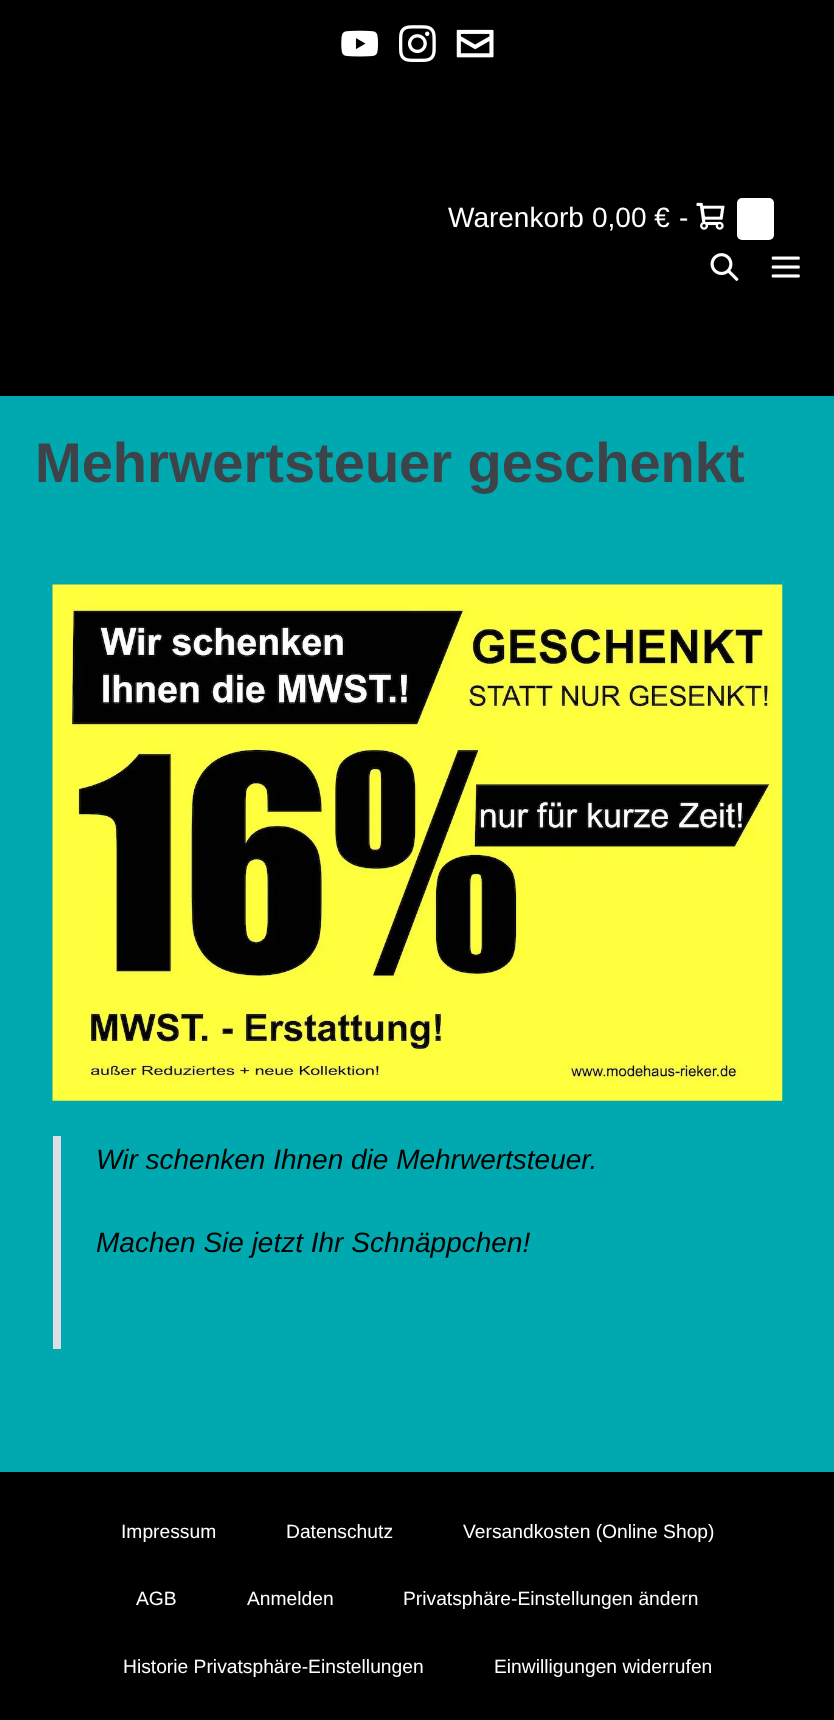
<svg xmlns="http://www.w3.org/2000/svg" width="834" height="1720">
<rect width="100%" height="100%" fill="#00a9af"/>
<rect width="834" height="396" fill="#000"/>
<image x="341" y="30" width="38" height="27" href="media/1.png"/>
<image x="399" y="25" width="37" height="37" href="media/2.png"/>
<image x="456" y="29" width="38" height="29" href="media/3.png"/>
<text x="448" y="227" style="font-family:Liberation Sans;font-size:28px;fill:#fff">Warenkorb</text>
<text x="592" y="227" style="font-family:Liberation Sans;font-size:28px;fill:#fff">0,00 €</text>
<text x="679" y="227" style="font-family:Liberation Sans;font-size:28px;fill:#fff">-</text>
<image x="696" y="202" width="29" height="28" href="media/4.png"/>
<rect x="737" y="198" width="37" height="42" rx="5" fill="#fff"/>
<image x="710" y="253" width="29" height="28" href="media/5.png"/>
<image x="771" y="256" width="29" height="22" href="media/6.png"/>
<text x="35" y="482" style="font-family:Liberation Sans;font-size:56px;font-weight:bold;fill:#3e4349">Mehrwertsteuer geschenkt</text>
<image x="52" y="584" width="731" height="517" href="media/7.png"/>
<rect x="53" y="1136" width="8" height="213" fill="#dedee5"/>
<text x="96" y="1169" style="font-family:Liberation Sans;font-size:28px;font-style:italic;fill:#000">Wir schenken Ihnen die Mehrwertsteuer.</text>
<text x="96" y="1252" style="font-family:Liberation Sans;font-size:28px;font-style:italic;fill:#000">Machen Sie jetzt Ihr Schnäppchen!</text>
<rect y="1472" width="834" height="248" fill="#000"/>
<text x="121" y="1538" style="font-family:Liberation Sans;font-size:19.25px;fill:#fff">Impressum</text>
<text x="286" y="1538" style="font-family:Liberation Sans;font-size:19.25px;fill:#fff">Datenschutz</text>
<text x="463" y="1538" style="font-family:Liberation Sans;font-size:19.25px;fill:#fff">Versandkosten (Online Shop)</text>
<text x="136" y="1605" style="font-family:Liberation Sans;font-size:19.25px;fill:#fff">AGB</text>
<text x="247" y="1605" style="font-family:Liberation Sans;font-size:19.25px;fill:#fff">Anmelden</text>
<text x="403" y="1605" style="font-family:Liberation Sans;font-size:19.25px;fill:#fff">Privatsphäre-Einstellungen ändern</text>
<text x="123" y="1673" style="font-family:Liberation Sans;font-size:19.25px;fill:#fff">Historie Privatsphäre-Einstellungen</text>
<text x="494" y="1673" style="font-family:Liberation Sans;font-size:19.25px;fill:#fff">Einwilligungen widerrufen</text>
</svg>
